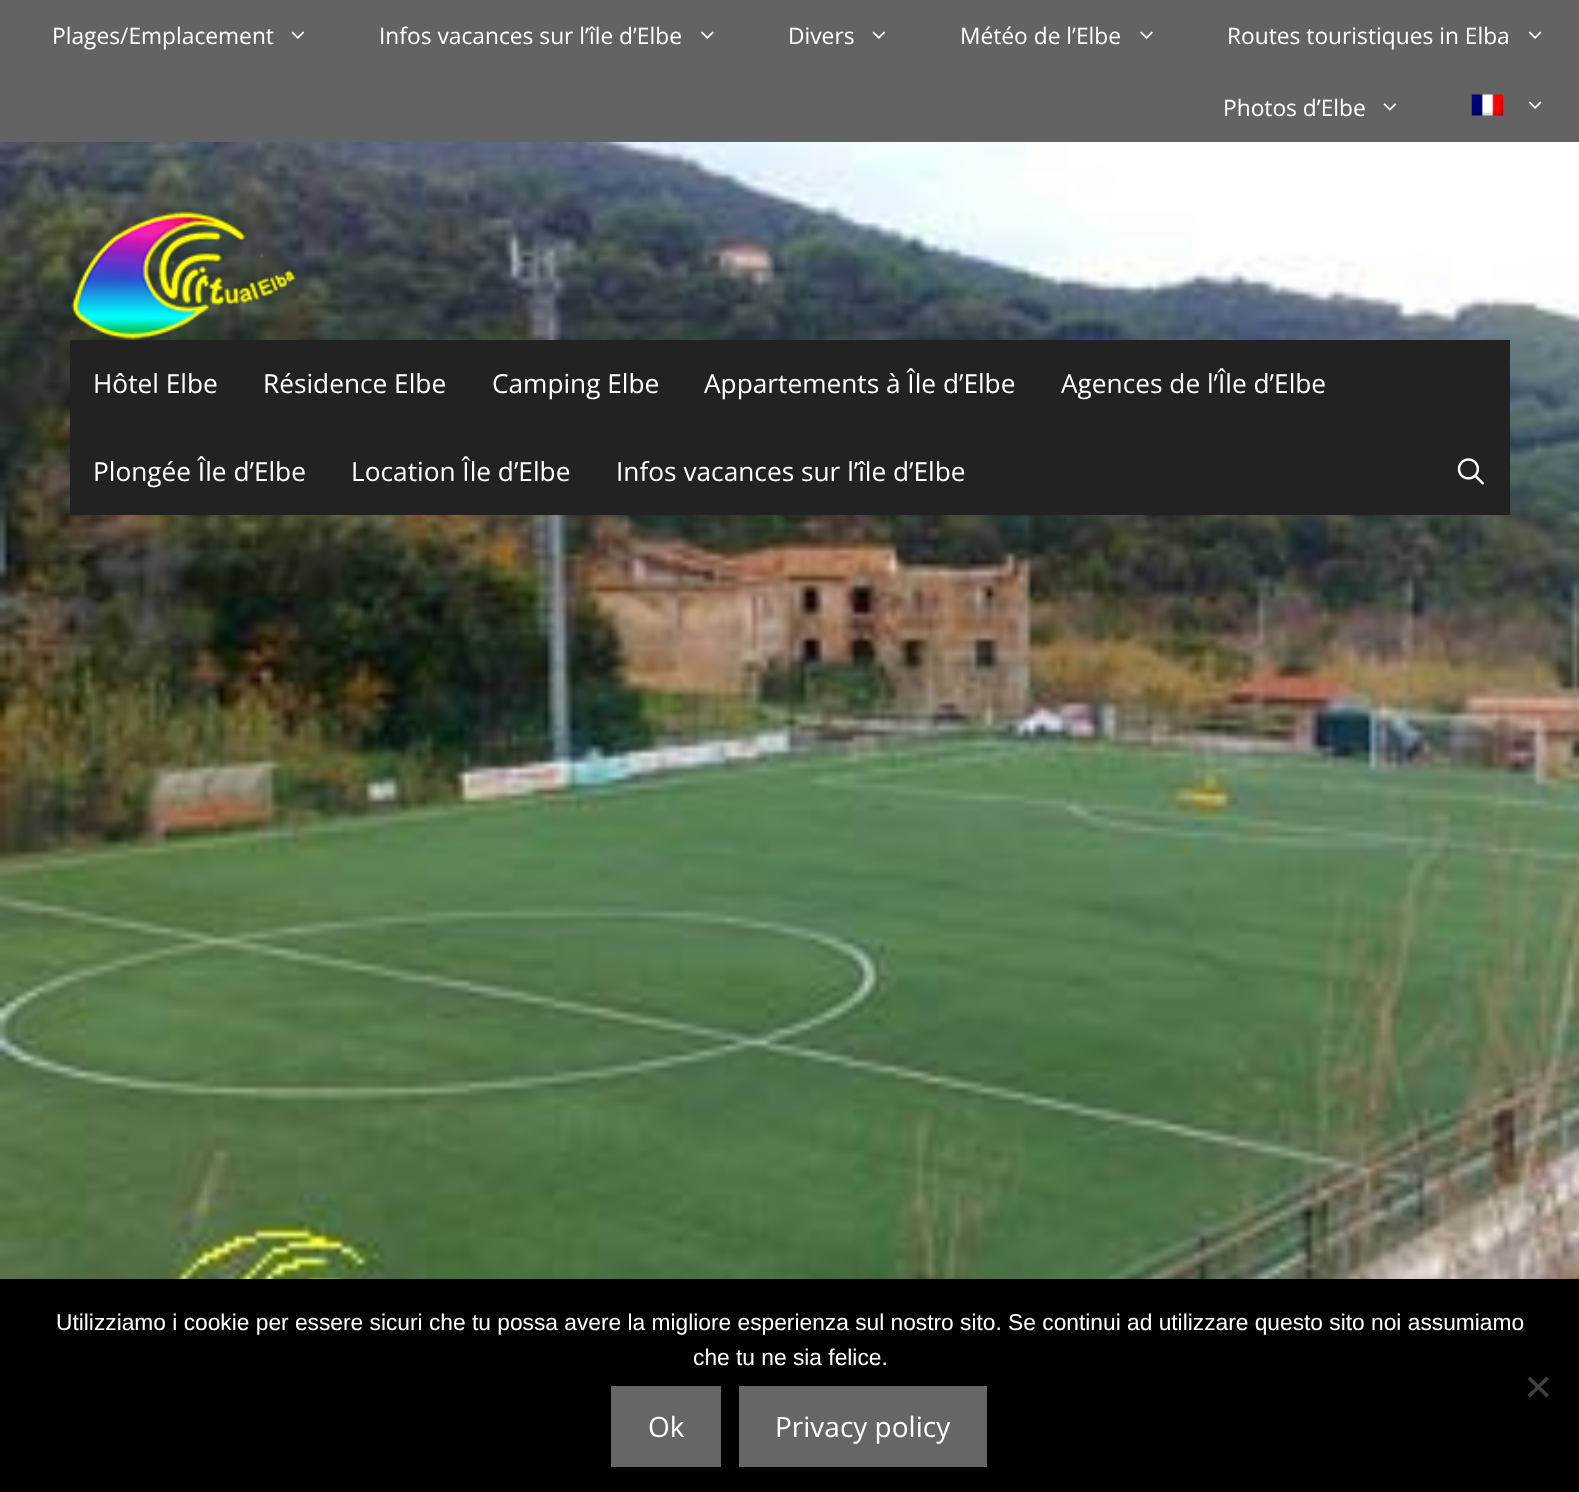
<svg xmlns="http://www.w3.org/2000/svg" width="1579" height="1492">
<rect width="100%" height="100%" fill="#fff"/>
<rect width="1579" height="142" fill="#636363"/>
<text x="52" y="44" style="font-family:Open Sans;font-size:22.75px;fill:#fff">Plages/Emplacement</text>
<image x="291" y="31" width="14" height="8" href="media/1.png"/>
<text x="379" y="44" style="font-family:Open Sans;font-size:22.75px;fill:#fff">Infos vacances sur l’île d’Elbe</text>
<image x="701" y="31" width="13" height="8" href="media/2.png"/>
<text x="788" y="44" style="font-family:Open Sans;font-size:22.75px;fill:#fff">Divers</text>
<image x="872" y="31" width="14" height="8" href="media/1.png"/>
<text x="960" y="44" style="font-family:Open Sans;font-size:22.75px;fill:#fff">Météo de l’Elbe</text>
<image x="1140" y="31" width="13" height="8" href="media/3.png"/>
<text x="1227" y="44" style="font-family:Open Sans;font-size:22.75px;fill:#fff">Routes touristiques in Elba</text>
<image x="1528" y="31" width="14" height="8" href="media/4.png"/>
<text x="1223" y="116" style="font-family:Open Sans;font-size:22.75px;fill:#fff">Photos d’Elbe</text>
<image x="1383" y="103" width="14" height="8" href="media/5.png"/>
<image x="1471" y="94" width="33" height="22" href="media/6.png"/>
<image x="1528" y="101" width="14" height="8" href="media/4.png"/>
<image x="0" y="142" width="1579" height="1137" href="media/9.png"/>
<image x="70" y="211" width="226" height="129" href="media/7.png"/>
<rect x="70" y="340" width="1440" height="175" fill="#222"/>
<text x="93" y="393" style="font-family:Open Sans;font-size:26.25px;fill:#fff">Hôtel Elbe</text>
<text x="263" y="393" style="font-family:Open Sans;font-size:26.25px;fill:#fff">Résidence Elbe</text>
<text x="492" y="393" style="font-family:Open Sans;font-size:26.25px;fill:#fff">Camping Elbe</text>
<text x="704" y="393" style="font-family:Open Sans;font-size:26.25px;fill:#fff">Appartements à Île d’Elbe</text>
<text x="1061" y="393" style="font-family:Open Sans;font-size:26.25px;fill:#fff">Agences de l’Île d’Elbe</text>
<text x="93" y="481" style="font-family:Open Sans;font-size:26.25px;fill:#fff">Plongée Île d’Elbe</text>
<text x="351" y="481" style="font-family:Open Sans;font-size:26.25px;fill:#fff">Location Île d’Elbe</text>
<text x="616" y="481" style="font-family:Open Sans;font-size:26.25px;fill:#fff">Infos vacances sur l’île d’Elbe</text>
<image x="1457" y="458" width="27" height="27" href="media/8.png"/>
<rect y="1279" width="1579" height="213" fill="#000"/>
<text x="56" y="1330" style="font-family:Liberation Sans;font-size:22.75px;fill:#fff">Utilizziamo i cookie per essere sicuri che tu possa avere la migliore esperienza sul nostro sito. Se continui ad utilizzare questo sito noi assumiamo</text>
<text x="693" y="1365" style="font-family:Liberation Sans;font-size:22.75px;fill:#fff">che tu ne sia felice.</text>
<path d="M1546.5 1376.5l2.5 2.5l-19 18.5l-2.5-2.5z" fill="#404040"/>
<path d="M1527.5 1379l2.5-2.5l19 18.5l-2.5 2.5z" fill="#404040"/>
<rect x="611" y="1386" width="110" height="81" fill="#666"/>
<text x="648" y="1437" style="font-family:Open Sans;font-size:28px;fill:#fff">Ok</text>
<rect x="739" y="1386" width="248" height="81" fill="#666"/>
<text x="775" y="1437" style="font-family:Open Sans;font-size:28px;fill:#fff">Privacy policy</text>
</svg>
